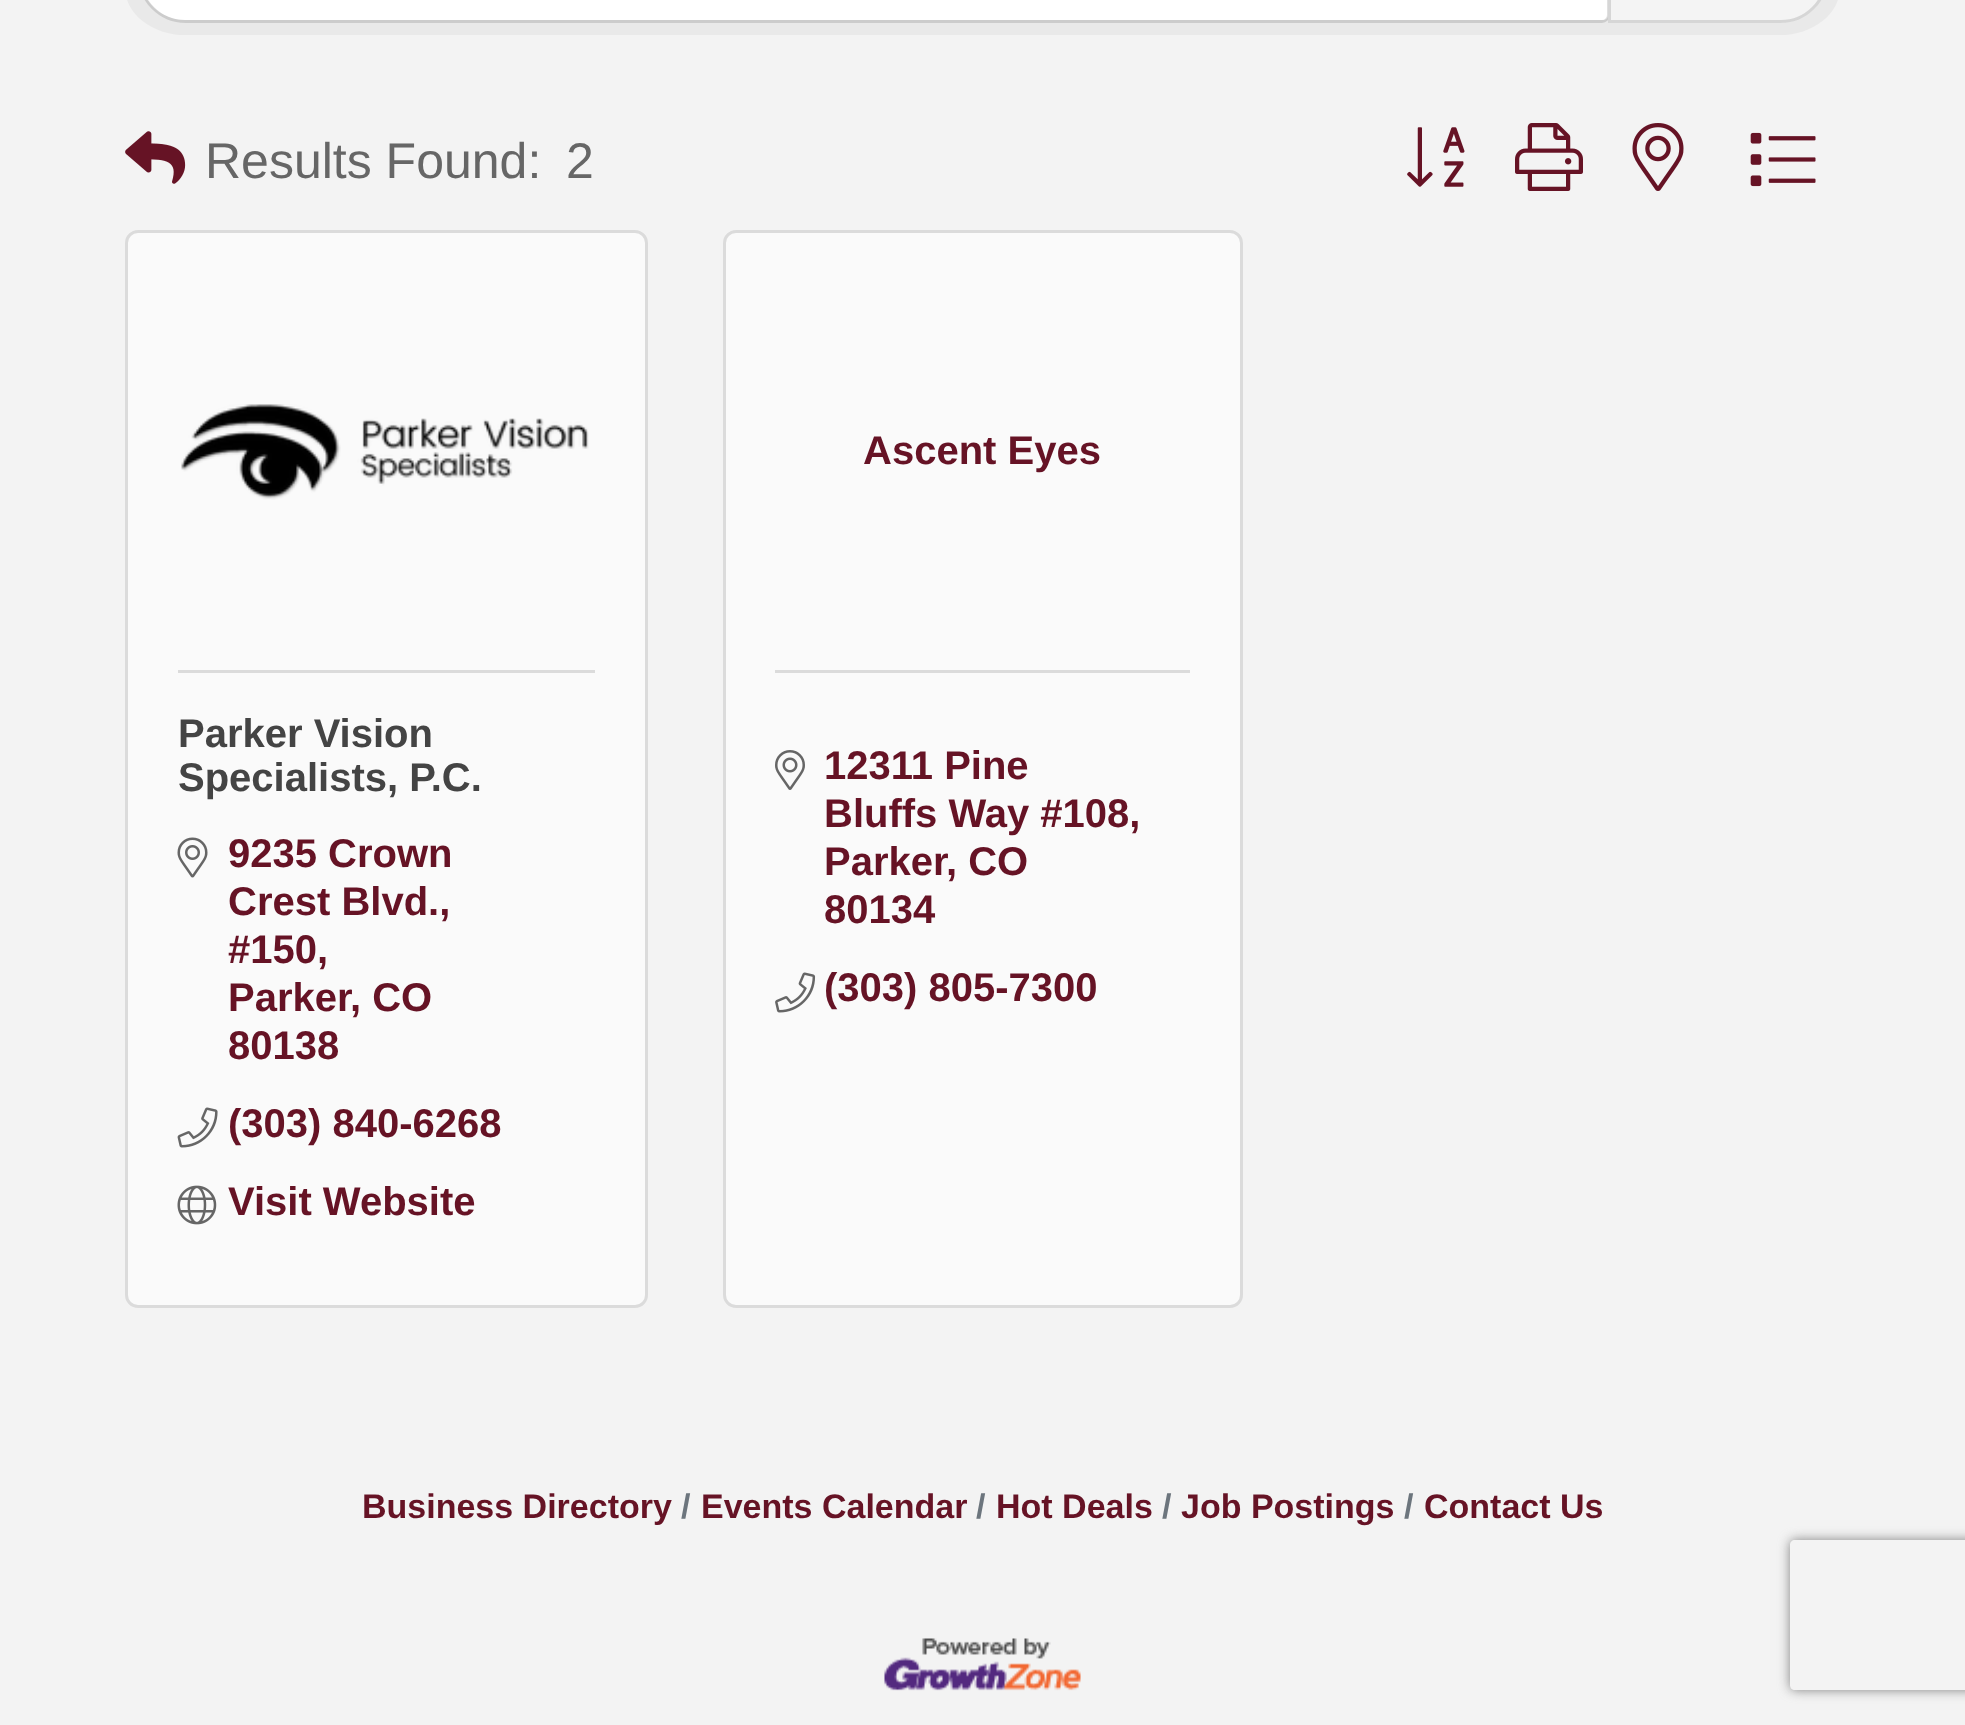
<svg xmlns="http://www.w3.org/2000/svg" width="1965" height="1725">
<defs>
<clipPath id="clip1"><path d="M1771 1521h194v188h-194zm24 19h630c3 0 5 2 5 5v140c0 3-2 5-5 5h-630c-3 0-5-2-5-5v-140c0-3 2-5 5-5z" clip-rule="evenodd"/></clipPath>
</defs>
<rect width="100%" height="100%" fill="#f3f3f3"/>
<rect x="125" y="-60" width="1715" height="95" rx="60" fill="#e9e9e9"/>
<path d="M185-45h1418c3 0 5 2 5 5v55c0 3-2 5-5 5h-1418c-25 0-45-20-45-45v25c0-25 20-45 45-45z" fill="#fff"/>
<path d="M185.5-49.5h1416.5c3.5 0 6.5 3 6.5 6.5v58c0 3.5-3 6.5-6.5 6.5h-1416.5c-25.5 0-46-20.5-46-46v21c0-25.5 20.5-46 46-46z" fill="none" stroke="#0000001f" stroke-width="3"/>
<path d="M1608-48h172.5c26 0 47.5 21.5 47.5 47.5v-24c0 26-21.5 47.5-47.5 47.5h-172.5z" fill="#f4f4f4"/>
<path d="M1609.5-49.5h171c25.5 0 46 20.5 46 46v-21c0 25.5-20.5 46-46 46h-171z" fill="none" stroke="#0000001f" stroke-width="3"/>
<image x="125" y="131" width="61" height="53" href="media/1.png"/>
<text x="205" y="178" style="font-family:Liberation Sans;font-size:50px;fill:#666">Results Found:</text>
<text x="566" y="178" style="font-family:Liberation Sans;font-size:50px;fill:#666">2</text>
<image x="1407" y="127" width="58" height="60" href="media/2.png"/>
<image x="1515" y="123" width="68" height="68" href="media/3.png"/>
<image x="1632" y="123" width="52" height="68" href="media/4.png"/>
<image x="1750" y="132" width="66" height="55" href="media/5.png"/>
<rect x="125" y="230" width="523" height="1078" rx="13" fill="#fafafa"/>
<rect x="126.5" y="231.5" width="520" height="1075" rx="11.5" fill="none" stroke="#0000001f" stroke-width="3"/>
<image x="181" y="404" width="408" height="96" href="media/6.png"/>
<rect x="178" y="670" width="417" height="3" fill="#dbdbdb"/>
<text x="178" y="747" style="font-family:Liberation Sans;font-size:40px;font-weight:bold;fill:#444">Parker Vision</text>
<text x="178" y="791" style="font-family:Liberation Sans;font-size:40px;font-weight:bold;fill:#444">Specialists, P.C.</text>
<image x="177" y="837" width="31" height="41" href="media/7.png"/>
<text x="228" y="867" style="font-family:Liberation Sans;font-size:40px;font-weight:bold;fill:#661325">9235 Crown</text>
<text x="228" y="915" style="font-family:Liberation Sans;font-size:40px;font-weight:bold;fill:#661325">Crest Blvd.,</text>
<text x="228" y="963" style="font-family:Liberation Sans;font-size:40px;font-weight:bold;fill:#661325">#150,</text>
<text x="228" y="1011" style="font-family:Liberation Sans;font-size:40px;font-weight:bold;fill:#661325">Parker</text>
<text x="350" y="1011" style="font-family:Liberation Sans;font-size:40px;font-weight:bold;fill:#661325">, CO</text>
<text x="228" y="1059" style="font-family:Liberation Sans;font-size:40px;font-weight:bold;fill:#661325">80138</text>
<image x="177" y="1107" width="41" height="41" href="media/8.png"/>
<text x="228" y="1137" style="font-family:Liberation Sans;font-size:40px;font-weight:bold;fill:#661325">(303) 840-6268</text>
<image x="177" y="1185" width="40" height="40" href="media/9.png"/>
<text x="228" y="1215" style="font-family:Liberation Sans;font-size:40px;font-weight:bold;fill:#661325">Visit Website</text>
<rect x="723" y="230" width="520" height="1078" rx="13" fill="#fafafa"/>
<rect x="724.5" y="231.5" width="517" height="1075" rx="11.5" fill="none" stroke="#0000001f" stroke-width="3"/>
<text x="863" y="464" style="font-family:Liberation Sans;font-size:40px;font-weight:bold;fill:#661325">Ascent Eyes</text>
<rect x="775" y="670" width="415" height="3" fill="#dbdbdb"/>
<image x="775" y="750" width="30" height="40" href="media/10.png"/>
<text x="824" y="779" style="font-family:Liberation Sans;font-size:40px;font-weight:bold;fill:#661325">12311 Pine</text>
<text x="824" y="827" style="font-family:Liberation Sans;font-size:40px;font-weight:bold;fill:#661325">Bluffs Way #108,</text>
<text x="824" y="875" style="font-family:Liberation Sans;font-size:40px;font-weight:bold;fill:#661325">Parker</text>
<text x="946" y="875" style="font-family:Liberation Sans;font-size:40px;font-weight:bold;fill:#661325">, CO</text>
<text x="824" y="923" style="font-family:Liberation Sans;font-size:40px;font-weight:bold;fill:#661325">80134</text>
<image x="775" y="972" width="41" height="41" href="media/11.png"/>
<text x="824" y="1001" style="font-family:Liberation Sans;font-size:40px;font-weight:bold;fill:#661325">(303) 805-7300</text>
<text x="362" y="1518" style="font-family:Liberation Sans;font-size:34px;font-weight:bold;fill:#661325">Business Directory</text>
<text x="681" y="1518" style="font-family:Liberation Sans;font-size:34px;font-weight:bold;fill:#6c757d">/</text>
<text x="701" y="1518" style="font-family:Liberation Sans;font-size:34px;font-weight:bold;fill:#661325">Events Calendar</text>
<text x="976" y="1518" style="font-family:Liberation Sans;font-size:34px;font-weight:bold;fill:#6c757d">/</text>
<text x="996" y="1518" style="font-family:Liberation Sans;font-size:34px;font-weight:bold;fill:#661325">Hot Deals</text>
<text x="1162" y="1518" style="font-family:Liberation Sans;font-size:34px;font-weight:bold;fill:#6c757d">/</text>
<text x="1181" y="1518" style="font-family:Liberation Sans;font-size:34px;font-weight:bold;fill:#661325">Job Postings</text>
<text x="1404" y="1518" style="font-family:Liberation Sans;font-size:34px;font-weight:bold;fill:#6c757d">/</text>
<text x="1424" y="1518" style="font-family:Liberation Sans;font-size:34px;font-weight:bold;fill:#661325">Contact Us</text>
<image x="884" y="1638" width="197" height="53" href="media/12.png"/>
<g clip-path="url(#clip1)">
<rect x="1790" y="1540" width="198" height="150" rx="5" fill="#808080" filter="blur(6px)"/>
</g>
</svg>
